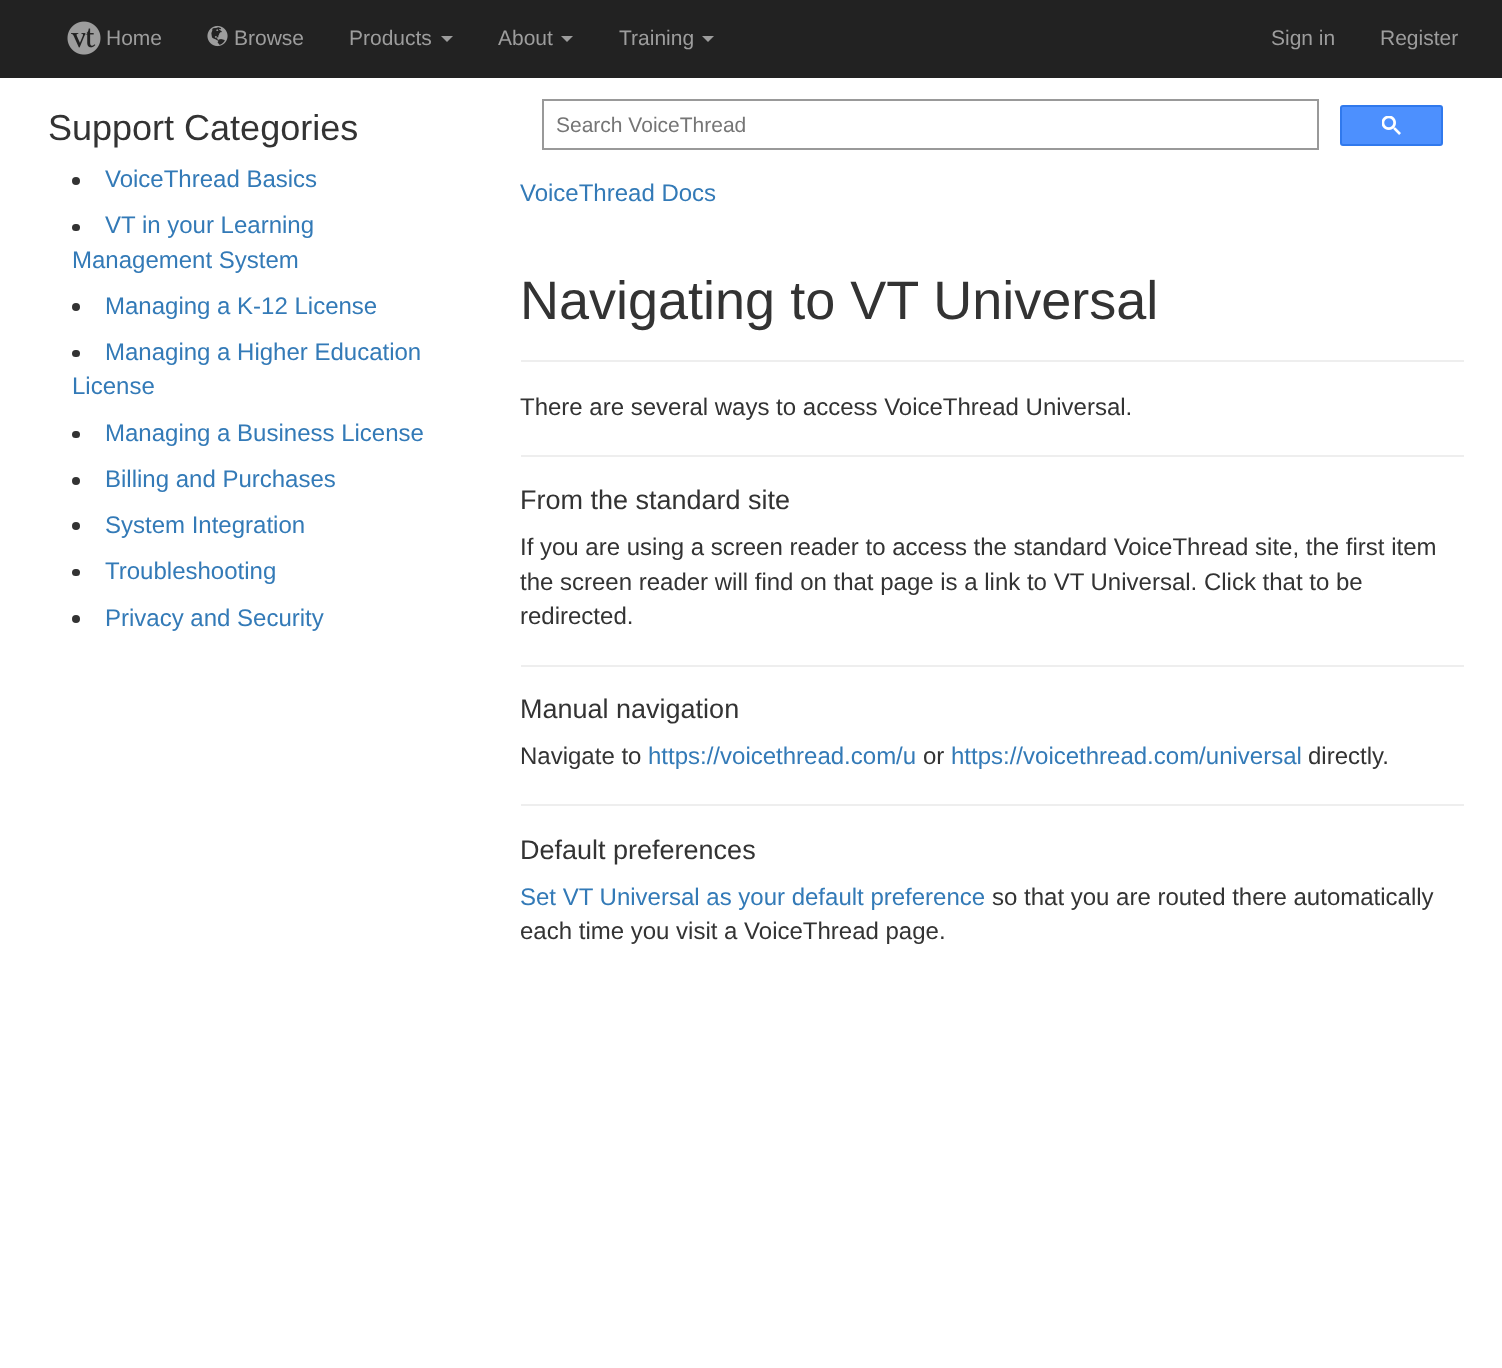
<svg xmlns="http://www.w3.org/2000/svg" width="1502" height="1368">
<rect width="100%" height="100%" fill="#fff"/>
<rect width="1502" height="78" fill="#222"/>
<image x="67" y="21" width="34" height="34" href="media/1.png"/>
<text x="106" y="45" style="font-family:Liberation Sans;font-size:21px;fill:#9d9d9d">Home</text>
<image x="207" y="25" width="21" height="22" href="media/2.png"/>
<text x="234" y="45" style="font-family:Liberation Sans;font-size:21px;fill:#9d9d9d">Browse</text>
<text x="349" y="45" style="font-family:Liberation Sans;font-size:21px;fill:#9d9d9d">Products</text>
<path d="M441 36h12l-6 6z" fill="#9d9d9d"/>
<text x="498" y="45" style="font-family:Liberation Sans;font-size:21px;fill:#9d9d9d">About</text>
<path d="M561 36h12l-6 6z" fill="#9d9d9d"/>
<text x="619" y="45" style="font-family:Liberation Sans;font-size:21px;fill:#9d9d9d">Training</text>
<path d="M702 36h12l-6 6z" fill="#9d9d9d"/>
<text x="1271" y="45" style="font-family:Liberation Sans;font-size:21px;fill:#9d9d9d">Sign in</text>
<text x="1380" y="45" style="font-family:Liberation Sans;font-size:21px;fill:#9d9d9d">Register</text>
<text x="48" y="140" style="font-family:Liberation Sans;font-size:36px;fill:#333">Support Categories</text>
<circle cx="76" cy="181" r="4" fill="#333"/>
<text x="105" y="187" style="font-family:Liberation Sans;font-size:24px;fill:#337ab7">VoiceThread Basics</text>
<rect x="72" y="224" width="8" height="7" rx="3.5" fill="#333"/>
<text x="105" y="233" style="font-family:Liberation Sans;font-size:24px;fill:#337ab7">VT in your Learning</text>
<text x="72" y="268" style="font-family:Liberation Sans;font-size:24px;fill:#337ab7">Management System</text>
<circle cx="76" cy="307" r="4" fill="#333"/>
<text x="105" y="314" style="font-family:Liberation Sans;font-size:24px;fill:#337ab7">Managing a K-12 License</text>
<rect x="72" y="350" width="8" height="7" rx="3.5" fill="#333"/>
<text x="105" y="360" style="font-family:Liberation Sans;font-size:24px;fill:#337ab7">Managing a Higher Education</text>
<text x="72" y="394" style="font-family:Liberation Sans;font-size:24px;fill:#337ab7">License</text>
<rect x="72" y="431" width="8" height="7" rx="3.5" fill="#333"/>
<text x="105" y="441" style="font-family:Liberation Sans;font-size:24px;fill:#337ab7">Managing a Business License</text>
<circle cx="76" cy="481" r="4" fill="#333"/>
<text x="105" y="487" style="font-family:Liberation Sans;font-size:24px;fill:#337ab7">Billing and Purchases</text>
<circle cx="76" cy="526" r="4" fill="#333"/>
<text x="105" y="533" style="font-family:Liberation Sans;font-size:24px;fill:#337ab7">System Integration</text>
<rect x="72" y="569" width="8" height="7" rx="3.5" fill="#333"/>
<text x="105" y="579" style="font-family:Liberation Sans;font-size:24px;fill:#337ab7">Troubleshooting</text>
<circle cx="76" cy="619" r="4" fill="#333"/>
<text x="105" y="626" style="font-family:Liberation Sans;font-size:24px;fill:#337ab7">Privacy and Security</text>
<rect x="543" y="100" width="775" height="49" fill="none" stroke="#999" stroke-width="2"/>
<text x="556" y="132" style="font-family:Liberation Sans;font-size:21px;fill:#757575">Search VoiceThread</text>
<rect x="1341" y="106" width="101" height="39" rx="2" fill="#4d90fe" stroke="#3079ed" stroke-width="2"/>
<image x="1382" y="116" width="19" height="19" href="media/3.png"/>
<text x="520" y="201" style="font-family:Liberation Sans;font-size:24px;fill:#337ab7">VoiceThread Docs</text>
<rect x="521" y="360" width="943" height="2" fill="#eee"/>
<text x="520" y="319" style="font-family:Liberation Sans;font-size:54px;fill:#333">Navigating to VT Universal</text>
<text x="520" y="415" style="font-family:Liberation Sans;font-size:24px;fill:#333">There are several ways to access VoiceThread Universal.</text>
<rect x="521" y="455" width="943" height="2" fill="#eee"/>
<text x="520" y="509" style="font-family:Liberation Sans;font-size:27px;fill:#333">From the standard site</text>
<text x="520" y="555" style="font-family:Liberation Sans;font-size:24px;fill:#333">If you are using a screen reader to access the standard VoiceThread site, the first item</text>
<text x="520" y="590" style="font-family:Liberation Sans;font-size:24px;fill:#333">the screen reader will find on that page is a link to VT Universal. Click that to be</text>
<text x="520" y="624" style="font-family:Liberation Sans;font-size:24px;fill:#333">redirected.</text>
<rect x="521" y="665" width="943" height="2" fill="#eee"/>
<text x="520" y="718" style="font-family:Liberation Sans;font-size:27px;fill:#333">Manual navigation</text>
<text x="520" y="764" style="font-family:Liberation Sans;font-size:24px;fill:#333">Navigate to</text>
<text x="648" y="764" style="font-family:Liberation Sans;font-size:24px;fill:#337ab7">https://voicethread.com/u</text>
<text x="923" y="764" style="font-family:Liberation Sans;font-size:24px;fill:#333">or</text>
<text x="951" y="764" style="font-family:Liberation Sans;font-size:24px;fill:#337ab7">https://voicethread.com/universal</text>
<text x="1308" y="764" style="font-family:Liberation Sans;font-size:24px;fill:#333">directly.</text>
<rect x="521" y="804" width="943" height="2" fill="#eee"/>
<text x="520" y="859" style="font-family:Liberation Sans;font-size:27px;fill:#333">Default preferences</text>
<text x="520" y="905" style="font-family:Liberation Sans;font-size:24px;fill:#337ab7">Set VT Universal as your default preference</text>
<text x="992" y="905" style="font-family:Liberation Sans;font-size:24px;fill:#333">so that you are routed there automatically</text>
<text x="520" y="939" style="font-family:Liberation Sans;font-size:24px;fill:#333">each time you visit a VoiceThread page.</text>
</svg>
